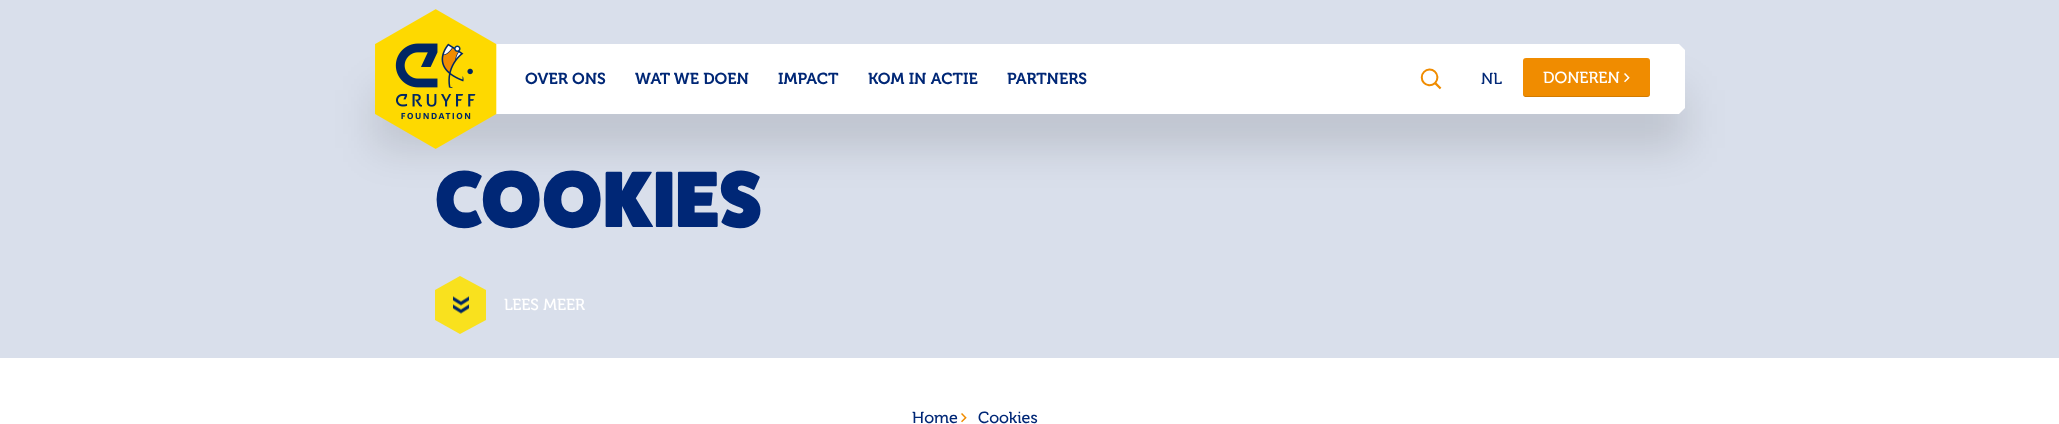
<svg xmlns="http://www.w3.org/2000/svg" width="2059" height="424">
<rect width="100%" height="100%" fill="#d9dfeb"/>
<rect x="375" y="90" width="1310" height="58" fill="#0000001f" filter="blur(20px)"/>
<rect x="375" y="50" width="1310" height="58" fill="#fff"/>
<path d="M1685 50h-1310l6-6h1298z" fill="#fff"/>
<path d="M375 108h1310l-6 6h-1298z" fill="#fff"/>
<image x="375" y="9" width="122" height="140" href="media/1.png"/>
<text x="525" y="84" style="font-family:'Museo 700';font-size:16px;font-weight:600;fill:#002776">OVER ONS</text>
<text x="635" y="84" style="font-family:'Museo 700';font-size:16px;font-weight:600;fill:#002776">WAT WE DOEN</text>
<text x="778" y="84" style="font-family:'Museo 700';font-size:16px;font-weight:600;fill:#002776">IMPACT</text>
<text x="868" y="84" style="font-family:'Museo 700';font-size:16px;font-weight:600;fill:#002776">KOM IN ACTIE</text>
<text x="1007" y="84" style="font-family:'Museo 700';font-size:16px;font-weight:600;fill:#002776">PARTNERS</text>
<image x="1420" y="68" width="22" height="22" href="media/2.png"/>
<text x="1481" y="84" style="font-family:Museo;font-size:16px;fill:#002776">NL</text>
<rect x="1523" y="58" width="127" height="39" rx="3" fill="#f08c00"/>
<path d="M1523 93v1c0 2 1 3 3 3h121c2 0 3-1 3-3v-1c0 2-1 3-3 3h-121c-2 0-3-1-3-3z" fill="#0000001f"/>
<text x="1543" y="83" style="font-family:Museo;font-size:16px;fill:#fff">DONEREN</text>
<image x="1624" y="73" width="6" height="10" href="media/3.png"/>
<text x="435" y="227" style="font-family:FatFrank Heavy;font-size:80px;font-weight:900;fill:#002776">COOKIES</text>
<path d="M460 276l-25 14v30l25 14l26-14v-30z" fill="#f9e11e"/>
<image x="453" y="296" width="16" height="18" href="media/4.png"/>
<text x="504" y="310" style="font-family:Museo;font-size:16px;fill:#fff">LEES MEER</text>
<rect y="358" width="2059" height="66" fill="#fff"/>
<text x="912" y="423" style="font-family:Museo;font-size:16px;fill:#002776">Home</text>
<image x="961" y="413" width="6" height="10" href="media/5.png"/>
<text x="978" y="423" style="font-family:Museo;font-size:16px;fill:#002776">Cookies</text>
</svg>
